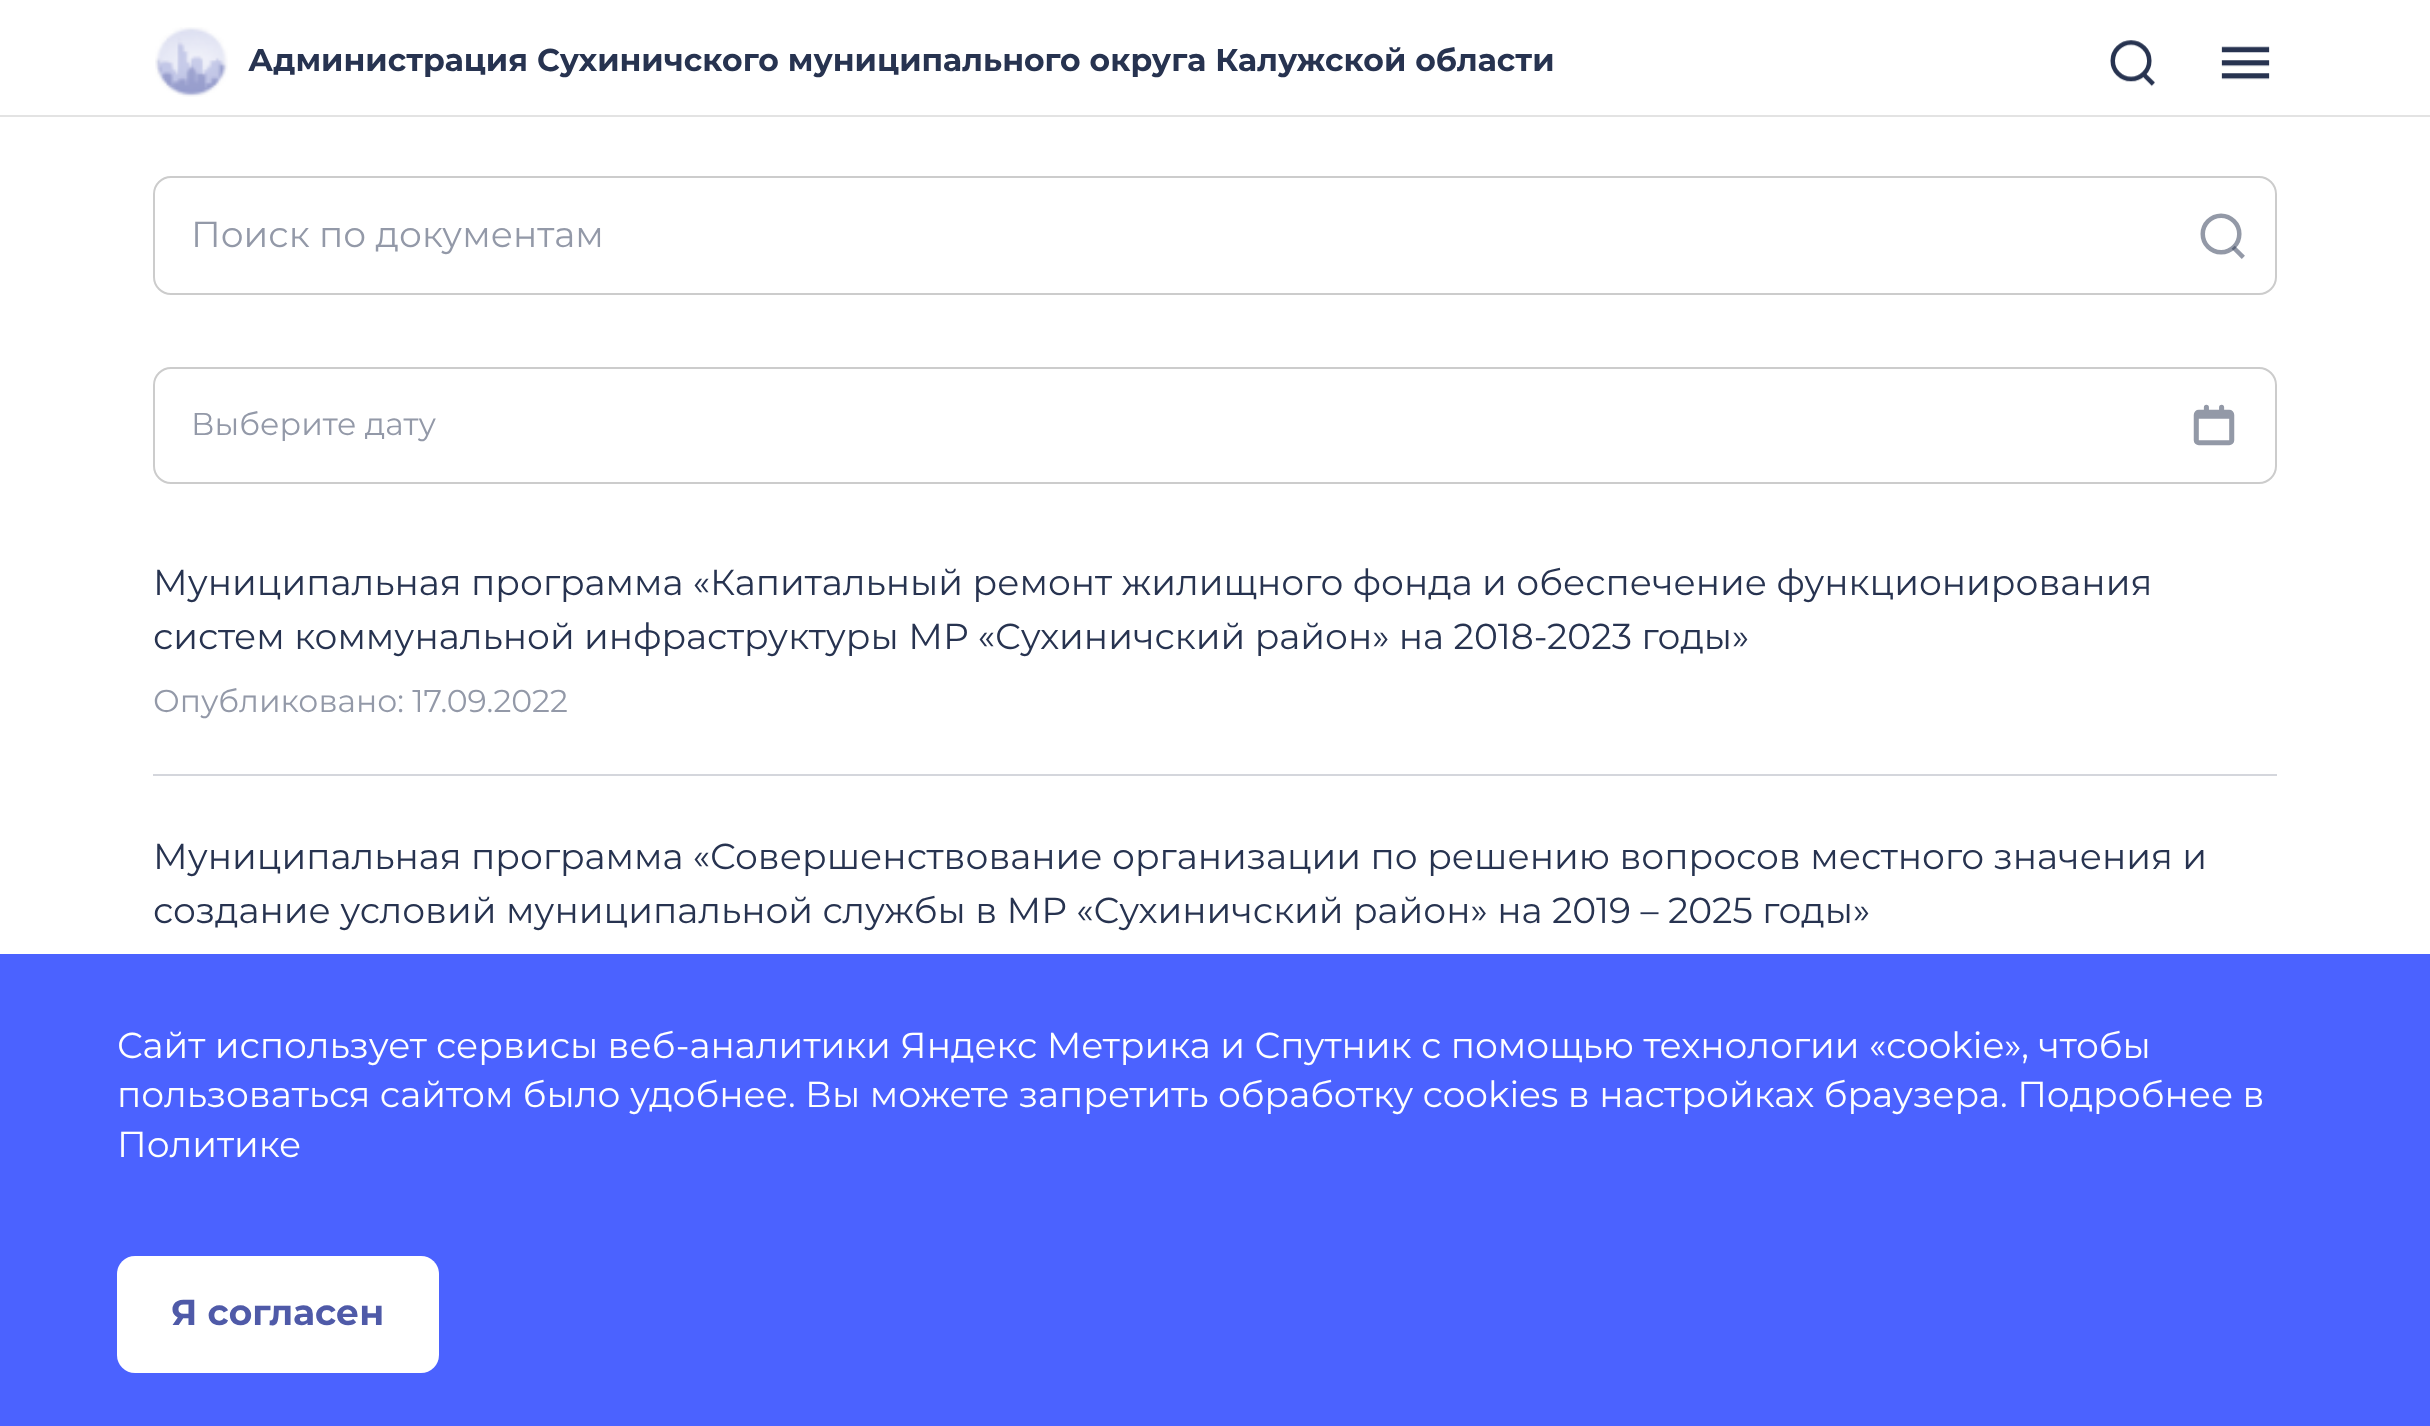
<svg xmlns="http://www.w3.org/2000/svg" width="2430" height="1426">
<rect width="100%" height="100%" fill="#fff"/>
<rect y="115" width="2430" height="2" fill="#e3e3e3"/>
<image x="155" y="27" width="73" height="70" href="media/1.png"/>
<text x="248" y="71" style="font-family:Montserrat;font-size:31.5px;font-weight:bold;fill:#273350">Администрация Сухиничского муниципального округа Калужской области</text>
<image x="2110" y="40" width="45" height="47" href="media/2.png"/>
<image x="2221" y="46" width="49" height="34" href="media/3.png"/>
<rect x="154" y="177" width="2122" height="117" rx="17" fill="none" stroke="#ccc" stroke-width="2"/>
<text x="191" y="247" style="font-family:Montserrat;font-size:36px;fill:#9399a8">Поиск по документам</text>
<image x="2200" y="213" width="45" height="46" href="media/4.png"/>
<rect x="154" y="368" width="2122" height="115" rx="17" fill="none" stroke="#ccc" stroke-width="2"/>
<text x="191" y="435" style="font-family:Montserrat;font-size:31.5px;fill:#9399a8">Выберите дату</text>
<image x="2193" y="404" width="42" height="42" href="media/5.png"/>
<rect x="153" y="774" width="2124" height="2" fill="#d4d6dc"/>
<text x="153" y="595" style="font-family:Montserrat;font-size:36px;fill:#273350">Муниципальная программа «Капитальный ремонт жилищного фонда и обеспечение функционирования</text>
<text x="153" y="649" style="font-family:Montserrat;font-size:36px;fill:#273350">систем коммунальной инфраструктуры МР «Сухиничский район» на 2018-2023 годы»</text>
<text x="153" y="712" style="font-family:Montserrat;font-size:31.5px;fill:#9399a8">Опубликовано: 17.09.2022</text>
<text x="153" y="869" style="font-family:Montserrat;font-size:36px;fill:#273350">Муниципальная программа «Совершенствование организации по решению вопросов местного значения и</text>
<text x="153" y="923" style="font-family:Montserrat;font-size:36px;fill:#273350">создание условий муниципальной службы в МР «Сухиничский район» на 2019 – 2025 годы»</text>
<rect y="954" width="2430" height="472" fill="#4b62ff"/>
<text x="117" y="1058" style="font-family:Montserrat;font-size:36px;fill:#fff">Сайт использует сервисы веб-аналитики Яндекс Метрика и Спутник с помощью технологии «cookie», чтобы</text>
<text x="117" y="1107" style="font-family:Montserrat;font-size:36px;fill:#fff">пользоваться сайтом было удобнее. Вы можете запретить обработку cookies в настройках браузера. Подробнее в</text>
<text x="117" y="1157" style="font-family:Montserrat;font-size:36px;fill:#fff">Политике</text>
<rect x="117" y="1256" width="322" height="117" rx="18" fill="#fff"/>
<text x="171" y="1325" style="font-family:Montserrat;font-size:36px;font-weight:bold;fill:#4f5aa8">Я согласен</text>
</svg>
